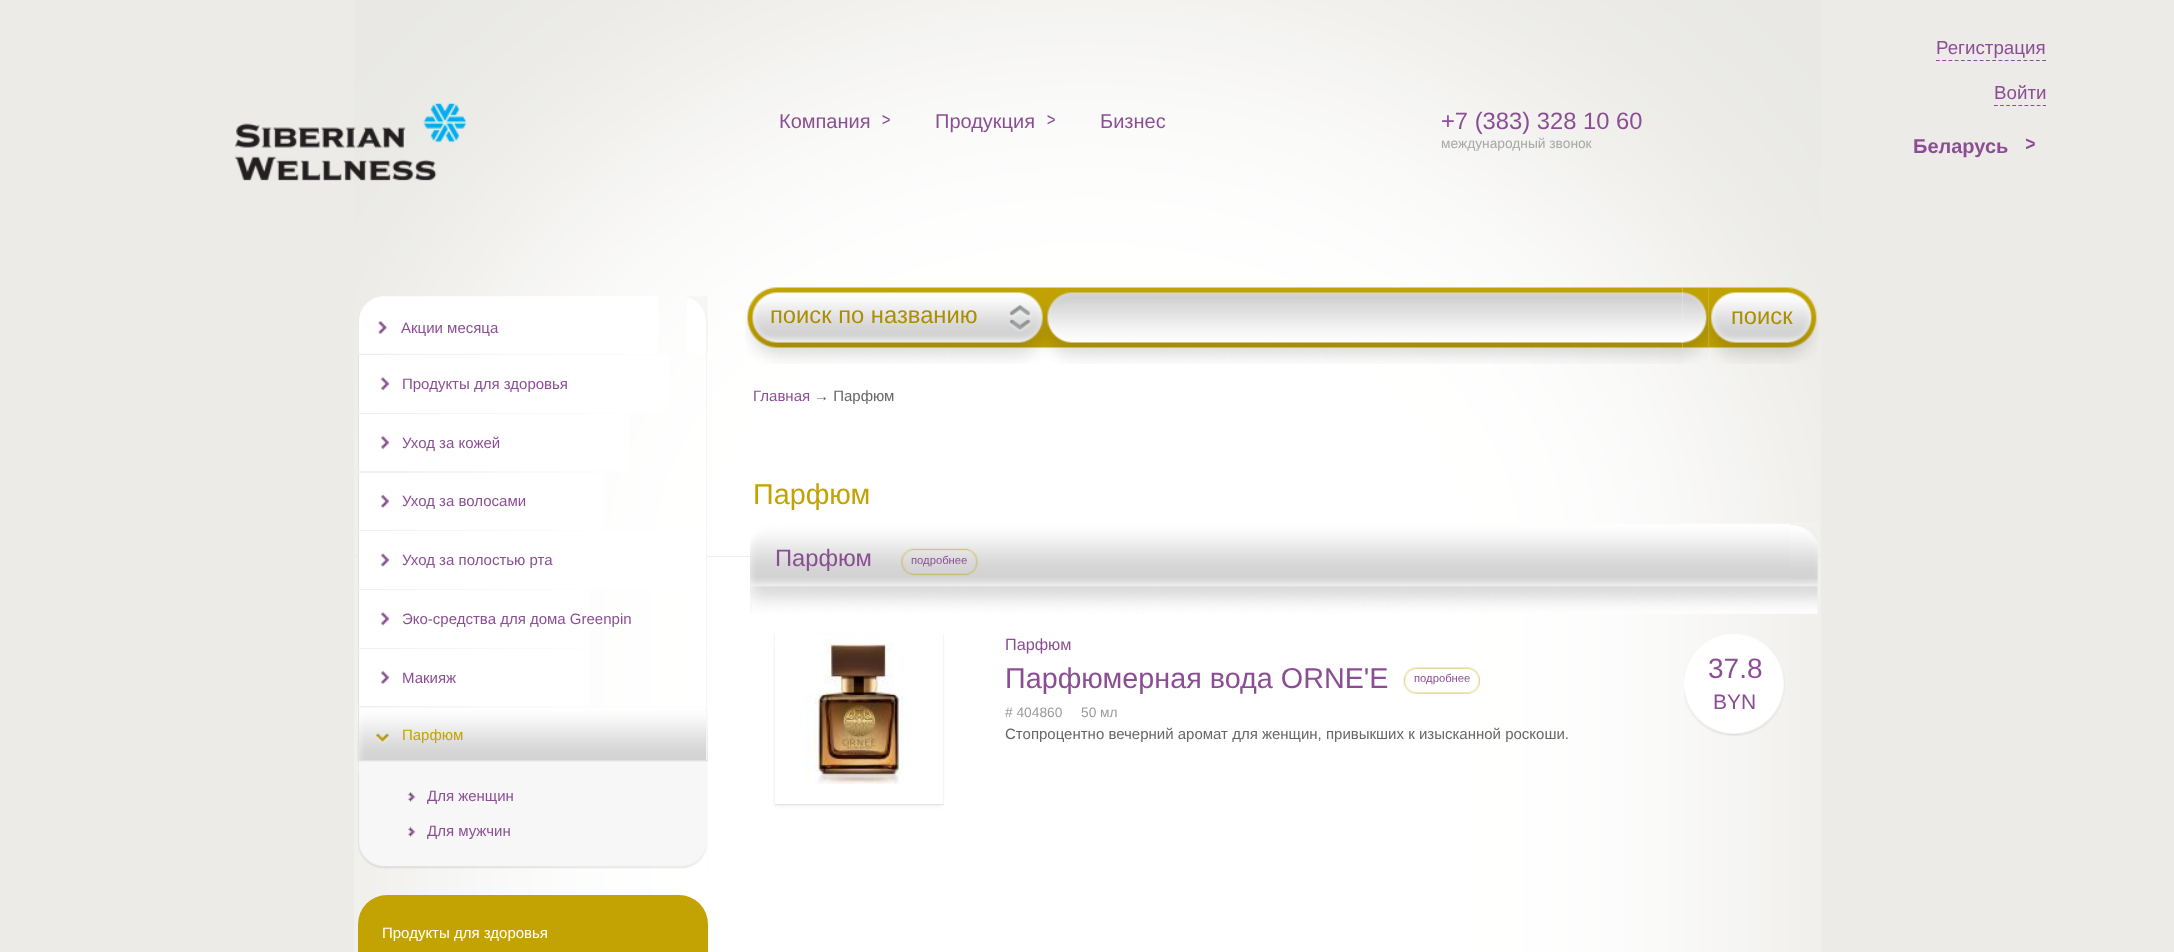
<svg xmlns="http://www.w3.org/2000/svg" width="2174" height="952">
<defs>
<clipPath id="clip1"><path d="M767 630h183v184h-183zm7 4h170v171h-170z" clip-rule="evenodd"/></clipPath>
</defs>
<rect width="100%" height="100%" fill="#ecebe8"/>
<image x="354" y="557" width="1467" height="395" href="media/1.png"/>
<rect x="354" y="556" width="1467" height="1" fill="#eae9e5"/>
<image x="354" y="0" width="1467" height="557" href="media/2.png"/>
<image x="235" y="103" width="232" height="78" href="media/3.png"/>
<text x="779" y="128" style="font-family:Liberation Sans;font-size:20px;fill:#8b4e94">Компания</text>
<text x="876" y="115" transform="rotate(90 876 115)" style="font-family:Liberation Sans;font-size:20px;letter-spacing:3px;fill:#8b4e94">^</text>
<text x="935" y="128" style="font-family:Liberation Sans;font-size:20px;fill:#8b4e94">Продукция</text>
<text x="1041" y="115" transform="rotate(90 1041 115)" style="font-family:Liberation Sans;font-size:20px;letter-spacing:3px;fill:#8b4e94">^</text>
<text x="1100" y="128" style="font-family:Liberation Sans;font-size:20px;fill:#8b4e94">Бизнес</text>
<text x="1441" y="129" style="font-family:Liberation Sans;font-size:23.75px;fill:#8b4e94">+7 (383) 328 10 60</text>
<text x="1441" y="148" style="font-family:Liberation Sans;font-size:13.75px;fill:#a5a8a7">международный звонок</text>
<path d="M1936 60.5h110" fill="none" stroke="#8b4e94" stroke-width="1.2" stroke-dasharray="3.75 2.5"/>
<text x="1936" y="54" style="font-family:Liberation Sans;font-size:18.75px;fill:#8b4e94">Регистрация</text>
<path d="M1994 105.5h52" fill="none" stroke="#8b4e94" stroke-width="1.2" stroke-dasharray="3.75 2.35"/>
<text x="1994" y="99" style="font-family:Liberation Sans;font-size:18.75px;fill:#8b4e94">Войти</text>
<text x="1913" y="153" style="font-family:Liberation Sans;font-size:20px;font-weight:bold;fill:#8b4e94">Беларусь</text>
<text x="2021" y="138" transform="rotate(90 2021 138)" style="font-family:Liberation Sans;font-size:20px;font-weight:bold;letter-spacing:4px;fill:#8b4e94">^</text>
<image x="358" y="296" width="300" height="58" href="media/4.png"/>
<image x="687" y="296" width="21" height="58" href="media/5.png"/>
<text x="401" y="333" style="font-family:Liberation Sans;font-size:15px;fill:#8b4e94">Акции месяца</text>
<rect x="706" y="355" width="1" height="58" fill="#f5f5f5"/>
<rect x="358" y="355" width="1" height="58" fill="#e0e0dd"/>
<rect x="359" y="355" width="310" height="58" fill="#fff"/>
<image x="381" y="377" width="9" height="14" href="media/6.png"/>
<text x="402" y="389" style="font-family:Liberation Sans;font-size:15px;fill:#8b4e94">Продукты для здоровья</text>
<rect x="706" y="414" width="1" height="57" fill="#f5f5f5"/>
<rect x="358" y="414" width="1" height="57" fill="#e0e0dd"/>
<rect x="359" y="414" width="270" height="57" fill="#fff"/>
<image x="381" y="436" width="9" height="13" href="media/7.png"/>
<text x="402" y="448" style="font-family:Liberation Sans;font-size:15px;fill:#8b4e94">Уход за кожей</text>
<rect x="706" y="473" width="1" height="57" fill="#f5f5f5"/>
<rect x="358" y="473" width="1" height="57" fill="#e0e0dd"/>
<rect x="359" y="473" width="245" height="57" fill="#fff"/>
<image x="381" y="494" width="9" height="14" href="media/8.png"/>
<text x="402" y="506" style="font-family:Liberation Sans;font-size:15px;fill:#8b4e94">Уход за волосами</text>
<rect x="706" y="531" width="1" height="58" fill="#f5f5f5"/>
<rect x="358" y="531" width="1" height="58" fill="#e0e0dd"/>
<rect x="359" y="531" width="347" height="58" fill="#fff"/>
<image x="381" y="553" width="9" height="14" href="media/9.png"/>
<text x="402" y="565" style="font-family:Liberation Sans;font-size:15px;fill:#8b4e94">Уход за полостью рта</text>
<rect x="706" y="590" width="1" height="58" fill="#f5f5f5"/>
<rect x="358" y="590" width="1" height="58" fill="#e0e0dd"/>
<rect x="359" y="590" width="230" height="58" fill="#fff"/>
<image x="381" y="612" width="9" height="14" href="media/6.png"/>
<text x="402" y="624" style="font-family:Liberation Sans;font-size:15px;fill:#8b4e94">Эко-средства для дома Greenpin</text>
<rect x="706" y="649" width="1" height="57" fill="#f5f5f5"/>
<rect x="358" y="649" width="1" height="57" fill="#e0e0dd"/>
<rect x="359" y="649" width="230" height="57" fill="#fff"/>
<image x="381" y="671" width="9" height="13" href="media/7.png"/>
<text x="402" y="683" style="font-family:Liberation Sans;font-size:15px;fill:#8b4e94">Макияж</text>
<image x="358" y="707" width="350" height="162" href="media/10.png"/>
<image x="357" y="707" width="351" height="55" href="media/11.png"/>
<rect x="706" y="708" width="1" height="53" fill="#f5f5f5"/>
<rect x="358" y="760" width="350" height="1" fill="#e1e1e1"/>
<rect x="358" y="708" width="1" height="53" fill="#e0e0dd"/>
<text x="402" y="740" style="font-family:Liberation Sans;font-size:15px;fill:#c2a303">Парфюм</text>
<image x="686" y="847" width="22" height="22" href="media/12.png"/>
<rect x="358" y="774" width="1" height="70" fill="#e0e0dd"/>
<image x="407" y="791" width="9" height="12" href="media/13.png"/>
<text x="427" y="801" style="font-family:Liberation Sans;font-size:15px;fill:#8b4e94">Для женщин</text>
<rect x="359" y="843" width="1" height="1" fill="#f7f7f7"/>
<image x="407" y="826" width="9" height="12" href="media/14.png"/>
<text x="427" y="836" style="font-family:Liberation Sans;font-size:15px;fill:#8b4e94">Для мужчин</text>
<rect x="358" y="895" width="350" height="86" rx="29" fill="#c2a303"/>
<text x="382" y="938" style="font-family:Liberation Sans;font-size:15px;fill:#fff">Продукты для здоровья</text>
<image x="745" y="287" width="300" height="77" href="media/15.png"/>
<text x="770" y="323" style="font-family:Liberation Sans;font-size:23.75px;fill:#aa8f03">поиск по названию</text>
<image x="1045" y="287" width="638" height="77" href="media/16.png"/>
<image x="1682" y="287" width="27" height="76" href="media/17.png"/>
<image x="1708" y="287" width="111" height="77" href="media/18.png"/>
<text x="1731" y="324" style="font-family:Liberation Sans;font-size:23.75px;fill:#aa8f03">поиск</text>
<text x="753" y="401" style="font-family:Liberation Sans;font-size:15px;fill:#8b4e94">Главная</text>
<text x="814" y="401" style="font-family:Liberation Sans;font-size:15px;fill:#666">→ Парфюм</text>
<text x="753" y="504" style="font-family:Liberation Sans;font-size:28.75px;fill:#c2a303">Парфюм</text>
<image x="750" y="523" width="1068" height="91" href="media/19.png"/>
<image x="1790" y="524" width="28" height="55" href="media/20.png"/>
<text x="775" y="566" style="font-family:Liberation Sans;font-size:23.75px;fill:#8b4e94">Парфюм</text>
<image x="901" y="548" width="67" height="28" href="media/21.png"/>
<image x="967" y="548" width="11" height="28" href="media/22.png"/>
<text x="911" y="564" style="font-family:Liberation Sans;font-size:11.25px;fill:#8b4e94">подробнее</text>
<g clip-path="url(#clip1)">
<rect x="776" y="639" width="165" height="166" fill="#e3e3e3" filter="blur(2.5px)"/>
</g>
<rect x="943" y="634" width="1" height="171" fill="#f5f5f5"/>
<rect x="774" y="804" width="170" height="1" fill="#e3e3e3"/>
<rect x="774" y="634" width="1" height="171" fill="#f5f5f5"/>
<image x="804" y="634" width="100" height="150" href="media/23.png"/>
<text x="1005" y="650" style="font-family:Liberation Sans;font-size:16.25px;fill:#8b4e94">Парфюм</text>
<text x="1005" y="688" style="font-family:Liberation Sans;font-size:28.75px;fill:#8b4e94">Парфюмерная вода ORNE'E</text>
<image x="1403" y="667" width="67" height="27" href="media/24.png"/>
<image x="1470" y="667" width="10" height="27" href="media/25.png"/>
<text x="1414" y="682" style="font-family:Liberation Sans;font-size:11.25px;fill:#8b4e94">подробнее</text>
<text x="1005" y="717" style="font-family:Liberation Sans;font-size:13.75px;fill:#9a9a9a"># 404860</text>
<text x="1081" y="717" style="font-family:Liberation Sans;font-size:13.75px;fill:#9a9a9a">50 мл</text>
<text x="1005" y="739" style="font-family:Liberation Sans;font-size:15px;fill:#666">Стопроцентно вечерний аромат для женщин, привыкших к изысканной роскоши.</text>
<image x="1684" y="634" width="101" height="102" href="media/26.png"/>
<text x="1708" y="678" style="font-family:Liberation Sans;font-size:28px;fill:#8b4e94">37.8</text>
<text x="1713" y="709" style="font-family:Liberation Sans;font-size:21px;fill:#8b4e94">BYN</text>
</svg>
